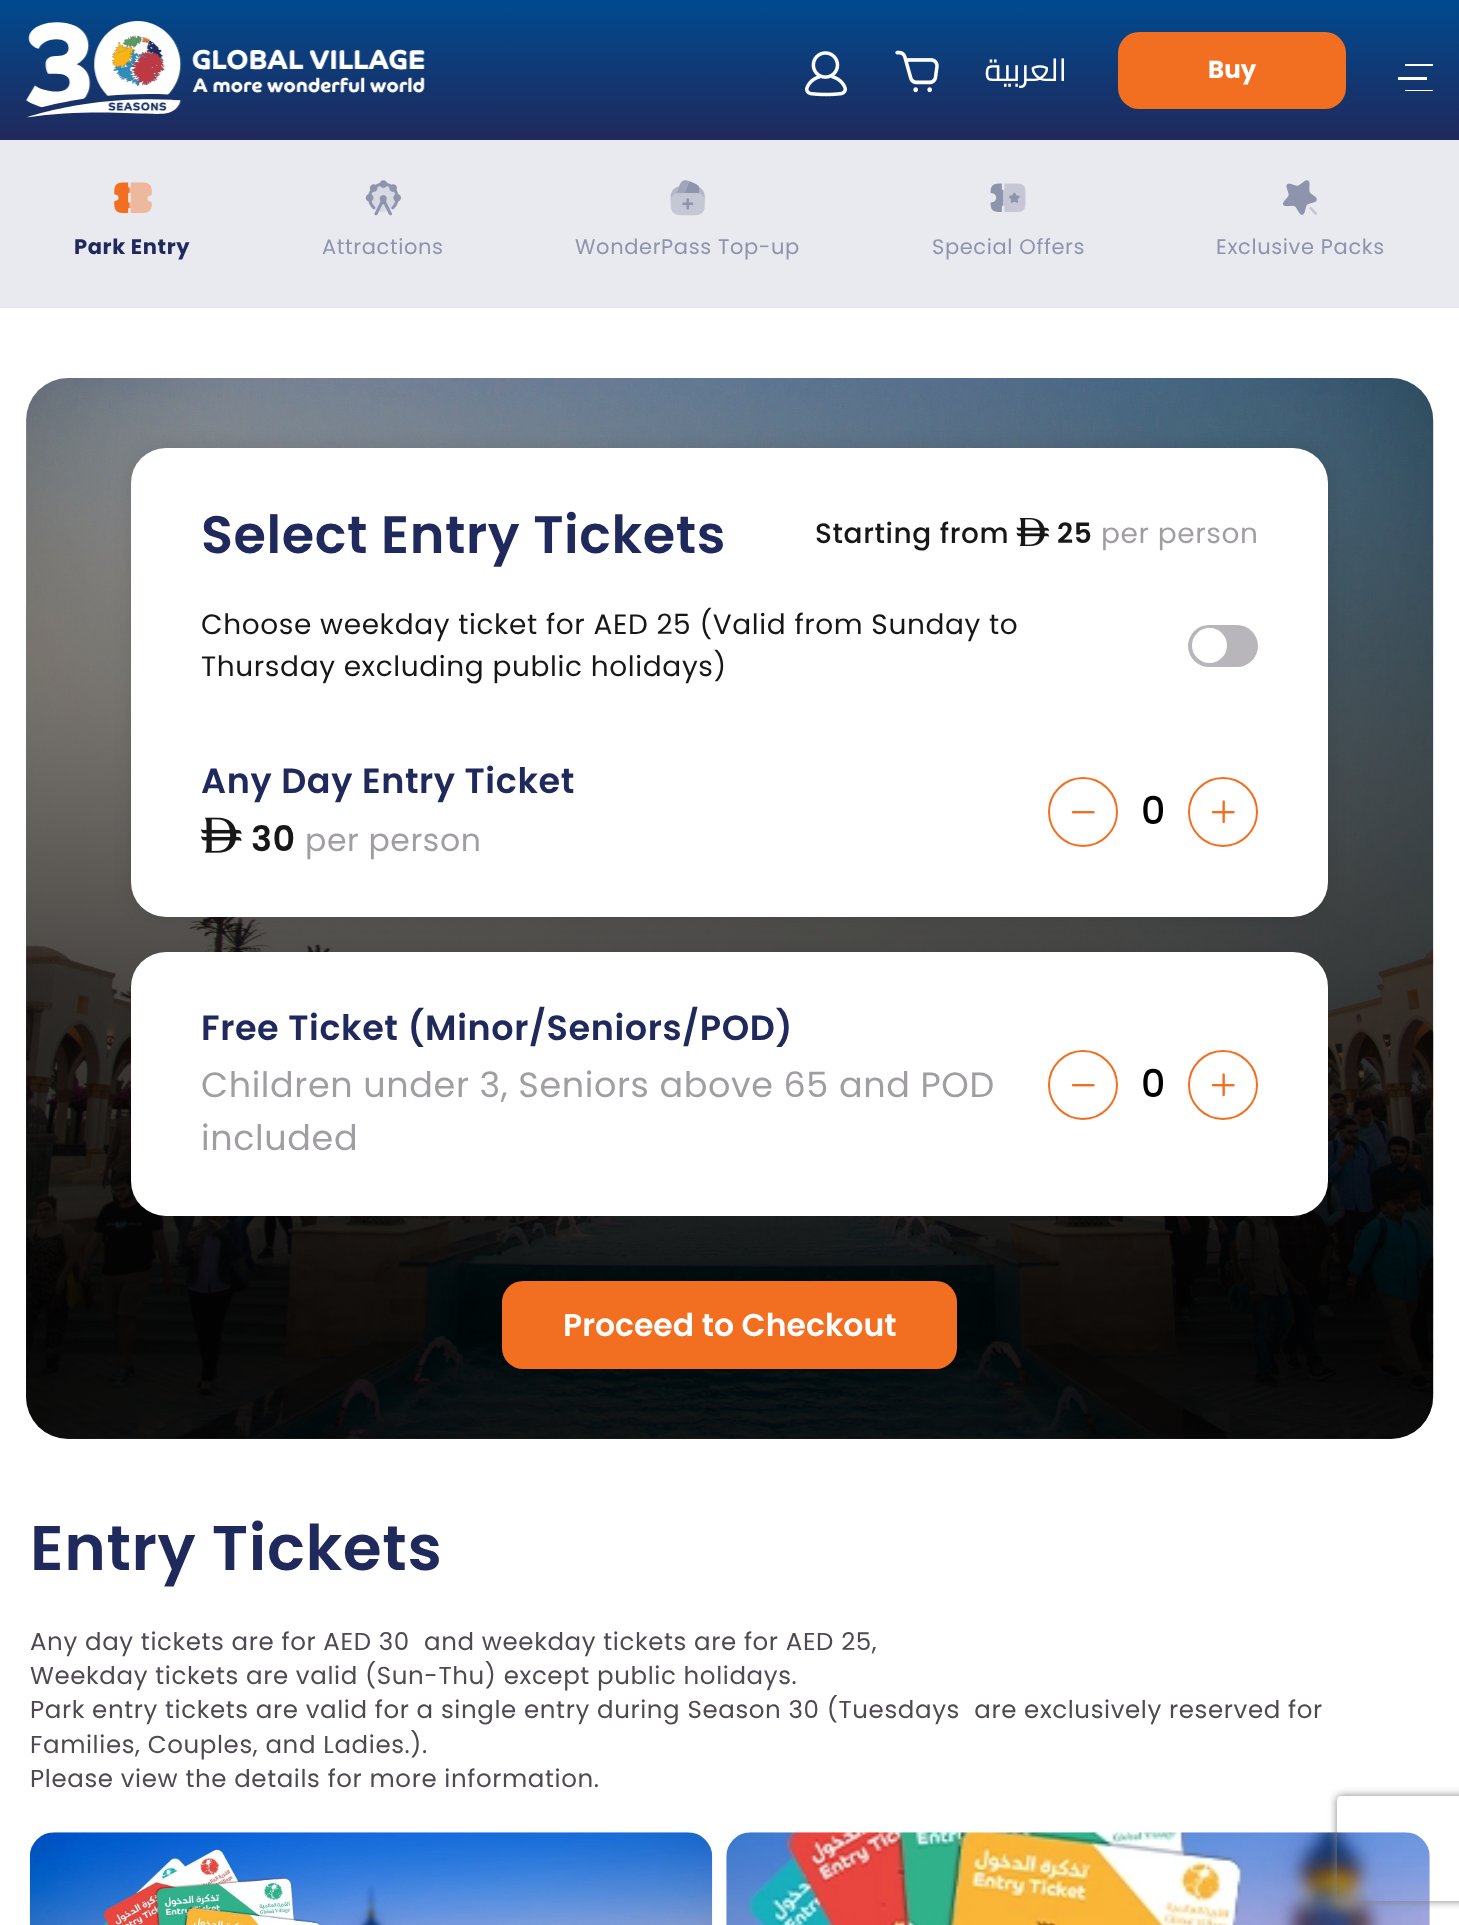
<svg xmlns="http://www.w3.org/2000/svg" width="1459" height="1925">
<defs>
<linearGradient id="g1" gradientUnits="userSpaceOnUse" x1="730" y1="0" x2="730" y2="140"><stop offset="0" stop-color="#004a8f"/><stop offset="1" stop-color="#20295c"/></linearGradient>
<linearGradient id="g2" gradientUnits="userSpaceOnUse" x1="730" y1="1439" x2="730" y2="378"><stop offset="0.13" stop-color="#000" stop-opacity="0.9"/><stop offset="1" stop-color="#000" stop-opacity="0.3"/><stop offset="1" stop-color="#000" stop-opacity="0.5"/></linearGradient>
<clipPath id="clip1"><path d="M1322 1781h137v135h-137zm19 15h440c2 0 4 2 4 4v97c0 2-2 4-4 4h-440c-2 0-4-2-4-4v-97c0-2 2-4 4-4z" clip-rule="evenodd"/></clipPath>
</defs>
<rect width="100%" height="100%" fill="#fff"/>
<rect width="1459" height="140" fill="url(#g1)"/>
<image x="26" y="21" width="399" height="97" href="media/1.png"/>
<image x="805" y="51" width="42" height="46" href="media/2.png"/>
<image x="895" y="50" width="44" height="43" href="media/3.png"/>
<text x="1067" y="81" style="font-family:Cairo;font-size:31.5px;letter-spacing:0.61px;direction:rtl;fill:#fff">العربية</text>
<rect x="1118" y="32" width="228" height="77" rx="21" fill="#f26f22"/>
<text x="1208" y="78" style="font-family:Poppins;font-size:24.5px;font-weight:bold;fill:#fff">Buy</text>
<rect x="1405" y="64" width="28" height="2" fill="#fff"/>
<rect x="1398" y="77" width="29" height="3" fill="#fff"/>
<rect x="1405" y="90" width="28" height="1" fill="#fff"/>
<rect y="140" width="1459" height="168" fill="#e9eaf0"/>
<image x="114" y="182" width="38" height="32" href="media/4.png"/>
<text x="74" y="254" style="font-family:Poppins;font-size:21px;font-weight:bold;letter-spacing:0.61px;fill:#20295c">Park Entry</text>
<image x="365" y="180" width="36" height="36" href="media/5.png"/>
<text x="322" y="254" style="font-family:Poppins;font-size:21px;letter-spacing:0.61px;fill:#8f94ad">Attractions</text>
<image x="670" y="180" width="35" height="36" href="media/6.png"/>
<text x="575" y="254" style="font-family:Poppins;font-size:21px;letter-spacing:0.61px;fill:#8f94ad">WonderPass Top-up</text>
<image x="990" y="183" width="36" height="29" href="media/7.png"/>
<text x="932" y="254" style="font-family:Poppins;font-size:21px;letter-spacing:0.61px;fill:#8f94ad">Special Offers</text>
<image x="1283" y="180" width="34" height="35" href="media/8.png"/>
<text x="1216" y="254" style="font-family:Poppins;font-size:21px;letter-spacing:0.61px;fill:#8f94ad">Exclusive Packs</text>
<image x="26" y="378" width="1408" height="1061" href="media/9.png"/>
<rect x="26" y="378" width="1407" height="1061" rx="42" fill="url(#g2)"/>
<rect x="131" y="448" width="1197" height="469" rx="35" fill="#0000001a" filter="blur(9px)"/>
<rect x="131" y="448" width="1197" height="469" rx="35" fill="#fff"/>
<text x="201" y="553" style="font-family:Poppins;font-size:52.5px;font-weight:600;letter-spacing:0.61px;fill:#20295c">Select Entry Tickets</text>
<text x="815" y="543" style="font-family:Poppins;font-size:28px;font-weight:500;letter-spacing:0.61px;fill:#171717">Starting from</text>
<image x="1016" y="518" width="33" height="28" href="media/10.png"/>
<text x="1057" y="543" style="font-family:Poppins;font-size:28px;font-weight:600;letter-spacing:0.61px;fill:#171717">25</text>
<text x="1101" y="543" style="font-family:Poppins;font-size:28px;letter-spacing:0.61px;fill:#a09ea2">per person</text>
<text x="201" y="634" style="font-family:Poppins;font-size:28px;letter-spacing:0.61px;fill:#171717">Choose weekday ticket for AED 25 (Valid from Sunday to</text>
<text x="201" y="676" style="font-family:Poppins;font-size:28px;letter-spacing:0.61px;fill:#171717">Thursday excluding public holidays)</text>
<rect x="1188" y="625" width="70" height="42" rx="21" fill="#b8b6ba"/>
<circle cx="1209.5" cy="645.5" r="17.5" fill="#fff"/>
<text x="201" y="793" style="font-family:Poppins;font-size:35px;font-weight:600;letter-spacing:0.61px;fill:#20295c">Any Day Entry Ticket</text>
<image x="201" y="817" width="41" height="36" href="media/11.png"/>
<text x="251" y="851" style="font-family:Poppins;font-size:35px;font-weight:600;letter-spacing:0.61px;fill:#171717">30</text>
<text x="305" y="851" style="font-family:Poppins;font-size:31.5px;letter-spacing:0.61px;fill:#a09ea2">per person</text>
<circle cx="1083" cy="812" r="34" fill="none" stroke="#f26f22" stroke-width="2"/>
<image x="1071" y="811" width="24" height="3" href="media/12.png"/>
<text x="1141" y="824" style="font-family:Poppins;font-size:38px;font-weight:500;fill:#000">0</text>
<circle cx="1223" cy="812" r="34" fill="none" stroke="#f26f22" stroke-width="2"/>
<image x="1211" y="800" width="24" height="24" href="media/13.png"/>
<rect x="131" y="952" width="1197" height="264" rx="35" fill="#fff"/>
<text x="201" y="1040" style="font-family:Poppins;font-size:35px;font-weight:600;letter-spacing:0.61px;fill:#20295c">Free Ticket (Minor/Seniors/POD)</text>
<text x="201" y="1097" style="font-family:Poppins;font-size:35px;letter-spacing:0.61px;fill:#a09ea2">Children under 3, Seniors above 65 and POD</text>
<text x="201" y="1150" style="font-family:Poppins;font-size:35px;letter-spacing:0.61px;fill:#a09ea2">included</text>
<circle cx="1083" cy="1085" r="34" fill="none" stroke="#f26f22" stroke-width="2"/>
<image x="1071" y="1084" width="24" height="3" href="media/12.png"/>
<text x="1141" y="1097" style="font-family:Poppins;font-size:38px;font-weight:500;fill:#000">0</text>
<circle cx="1223" cy="1085" r="34" fill="none" stroke="#f26f22" stroke-width="2"/>
<image x="1211" y="1073" width="24" height="24" href="media/13.png"/>
<rect x="502" y="1281" width="455" height="88" rx="21" fill="#f26f22"/>
<text x="563" y="1336" style="font-family:Poppins;font-size:31.5px;font-weight:600;fill:#fff">Proceed to Checkout</text>
<text x="30" y="1570" style="font-family:Poppins;font-size:63px;font-weight:600;letter-spacing:0.61px;fill:#20295c">Entry Tickets</text>
<text x="30" y="1650" style="font-family:Poppins;font-size:24.5px;letter-spacing:0.61px;fill:#4e4953" xml:space="preserve">Any day tickets are for AED 30  and weekday tickets are for AED 25,</text>
<text x="30" y="1684" style="font-family:Poppins;font-size:24.5px;letter-spacing:0.61px;fill:#4e4953">Weekday tickets are valid (Sun-Thu) except public holidays.</text>
<text x="30" y="1718" style="font-family:Poppins;font-size:24.5px;letter-spacing:0.61px;fill:#4e4953" xml:space="preserve">Park entry tickets are valid for a single entry during Season 30 (Tuesdays  are exclusively reserved for</text>
<text x="30" y="1753" style="font-family:Poppins;font-size:24.5px;letter-spacing:0.61px;fill:#4e4953">Families, Couples, and Ladies.).</text>
<text x="30" y="1787" style="font-family:Poppins;font-size:24.5px;letter-spacing:0.61px;fill:#4e4953">Please view the details for more information.</text>
<image x="29" y="1832" width="684" height="93" href="media/14.png"/>
<image x="726" y="1832" width="704" height="93" href="media/15.png"/>
<g clip-path="url(#clip1)">
<rect x="1337" y="1796" width="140" height="105" rx="4" fill="#808080" filter="blur(4.5px)"/>
</g>
</svg>
